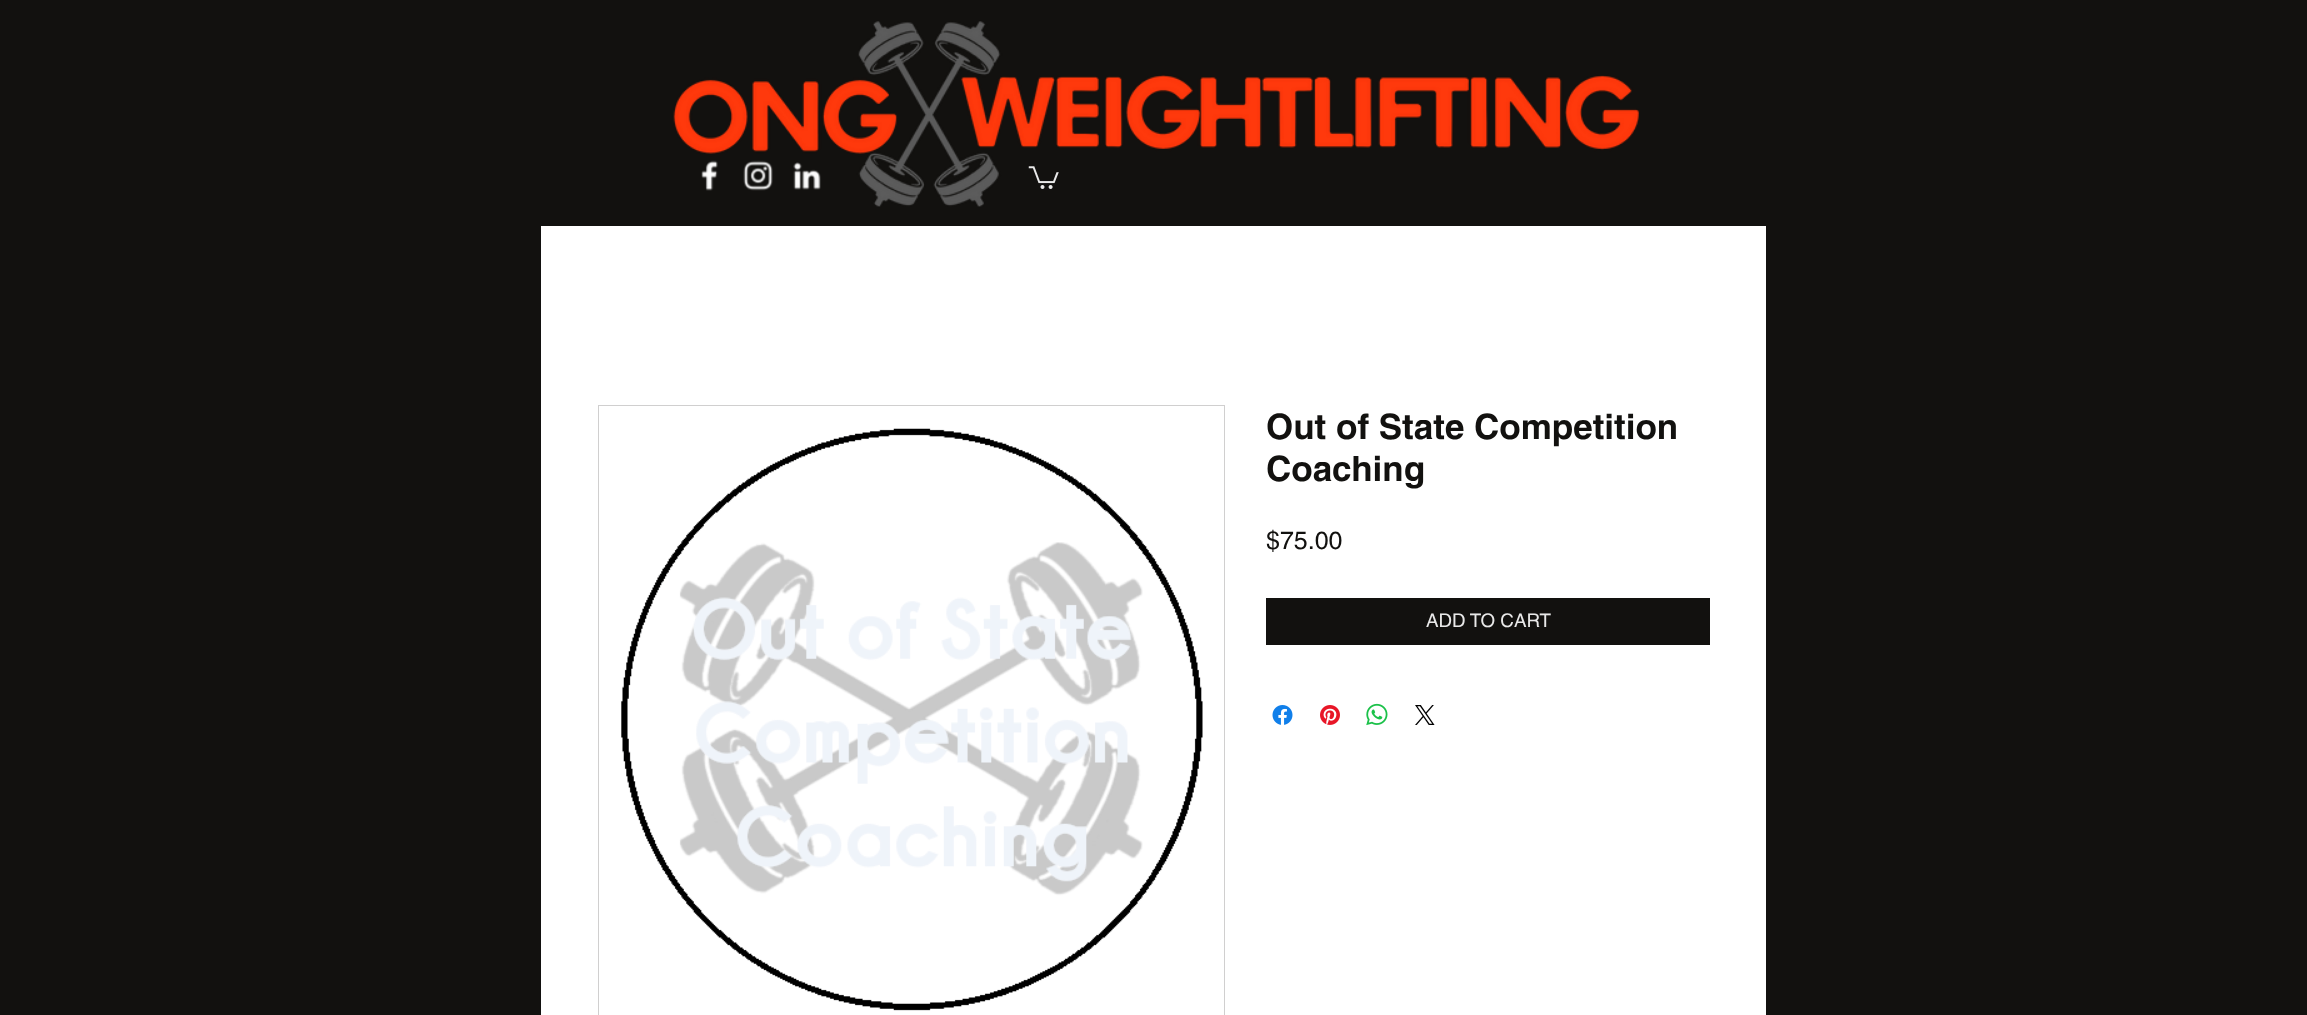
<svg xmlns="http://www.w3.org/2000/svg" width="2307" height="1015">
<rect width="100%" height="100%" fill="#12110f"/>
<image x="673" y="21" width="966" height="186" href="media/1.png"/>
<image x="701" y="160" width="17" height="31" href="media/2.png"/>
<image x="743" y="160" width="30" height="31" href="media/3.png"/>
<image x="793" y="162" width="28" height="28" href="media/4.png"/>
<image x="1028" y="166" width="31" height="23" href="media/5.png"/>
<rect x="541" y="226" width="1225" height="789" fill="#fff"/>
<rect x="598.5" y="405.5" width="626" height="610" fill="none" stroke="#d0cfcf"/>
<image x="621" y="428" width="582" height="583" href="media/6.png"/>
<text x="1266" y="439" style="font-family:helvetica;font-size:35px;font-weight:bold;fill:#12110f">Out of State Competition</text>
<text x="1266" y="481" style="font-family:helvetica;font-size:35px;font-weight:bold;fill:#12110f">Coaching</text>
<text x="1266" y="549" style="font-family:helvetica;font-size:25px;fill:#12110f">$75.00</text>
<rect x="1266" y="598" width="444" height="47" fill="#12110f"/>
<text x="1426" y="627" style="font-family:helvetica;font-size:18.75px;fill:#e9e9e9">ADD TO CART</text>
<image x="1272" y="705" width="21" height="20" href="media/7.png"/>
<image x="1320" y="705" width="20" height="20" href="media/8.png"/>
<image x="1366" y="703" width="22" height="23" href="media/9.png"/>
<image x="1415" y="705" width="20" height="20" href="media/10.png"/>
</svg>
